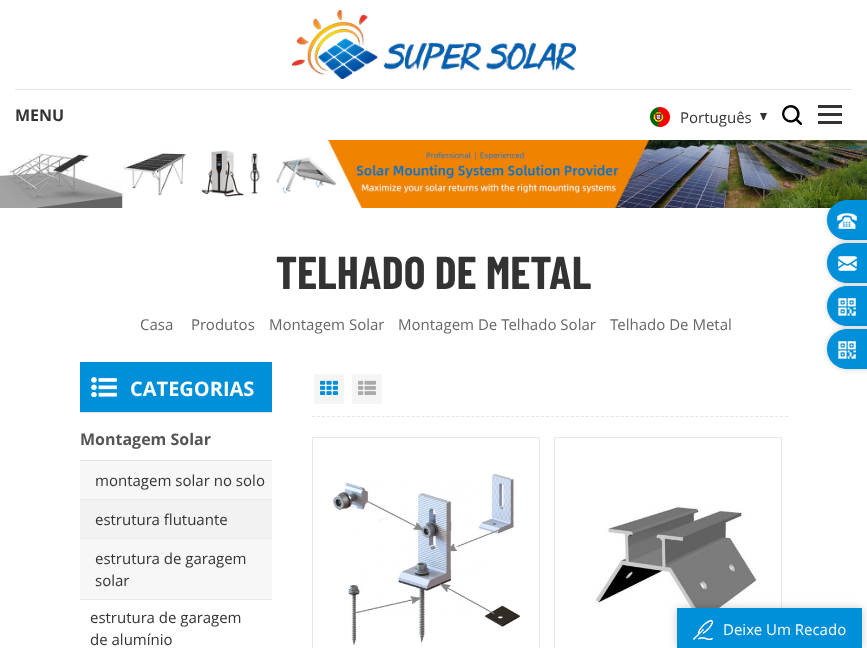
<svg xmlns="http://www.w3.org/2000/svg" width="867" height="648">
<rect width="100%" height="100%" fill="#fff"/>
<image x="292" y="10" width="284" height="69" href="media/1.png"/>
<rect x="15" y="89" width="837" height="1" fill="#e6e6e6"/>
<text x="15" y="121" style="font-family:Open Sans;font-size:16px;font-weight:bold;fill:#333">MENU</text>
<rect x="818" y="105" width="24" height="3" fill="#333"/>
<rect x="818" y="113" width="24" height="3" fill="#333"/>
<rect x="818" y="121" width="24" height="3" fill="#333"/>
<image x="650" y="107" width="20" height="20" href="media/2.png"/>
<text x="680" y="123" style="font-family:Open Sans;font-size:15px;fill:#333">Português</text>
<image x="760" y="113" width="7" height="7" href="media/3.png"/>
<image x="782" y="105" width="20" height="20" href="media/4.png"/>
<image x="0" y="140" width="867" height="68" href="media/5.png"/>
<text x="276" y="289" style="font-family:Barlow;font-size:46px;font-weight:bold;fill:#333">TELHADO DE METAL</text>
<text x="140" y="330" style="font-family:Open Sans;font-size:15px;fill:#666">Casa</text>
<text x="191" y="330" style="font-family:Open Sans;font-size:15px;fill:#666">Produtos</text>
<text x="269" y="330" style="font-family:Open Sans;font-size:15px;fill:#666">Montagem Solar</text>
<text x="398" y="330" style="font-family:Open Sans;font-size:15px;fill:#666">Montagem De Telhado Solar</text>
<text x="610" y="330" style="font-family:Open Sans;font-size:15px;fill:#666">Telhado De Metal</text>
<rect x="827" y="200" width="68" height="40" rx="20" fill="#00000033" filter="blur(2.5px)"/>
<path d="M847 200h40v40h-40c-11 0-20-9-20-20c0-11 9-20 20-20z" fill="#008fd9"/>
<image x="837" y="213" width="20" height="16" href="media/6.png"/>
<rect x="827" y="243" width="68" height="40" rx="20" fill="#00000033" filter="blur(2.5px)"/>
<path d="M847 243h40v40h-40c-11 0-20-9-20-20c0-11 9-20 20-20z" fill="#008fd9"/>
<image x="838" y="256" width="19" height="15" href="media/7.png"/>
<rect x="827" y="286" width="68" height="40" rx="20" fill="#00000033" filter="blur(2.5px)"/>
<path d="M847 286h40v40h-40c-11 0-20-9-20-20c0-11 9-20 20-20z" fill="#008fd9"/>
<image x="838" y="298" width="18" height="18" href="media/8.png"/>
<rect x="827" y="329" width="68" height="40" rx="20" fill="#00000033" filter="blur(2.5px)"/>
<path d="M847 329h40v40h-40c-11 0-20-9-20-20c0-11 9-20 20-20z" fill="#008fd9"/>
<image x="838" y="341" width="18" height="18" href="media/8.png"/>
<rect x="80" y="362" width="192" height="50" fill="#008fd9"/>
<rect x="80" y="412" width="192" height="1" fill="#e5e5e5"/>
<image x="91" y="377" width="26" height="20" href="media/9.png"/>
<text x="130" y="396" style="font-family:Open Sans;font-size:20px;font-weight:bold;fill:#fff">CATEGORIAS</text>
<rect x="80" y="460" width="192" height="1" fill="#e5e5e5"/>
<text x="80" y="445" style="font-family:Open Sans;font-size:16px;font-weight:bold;fill:#555">Montagem Solar</text>
<rect x="80" y="461" width="192" height="38" fill="#f7f7f7"/>
<rect x="80" y="499" width="192" height="1" fill="#ebebeb"/>
<text x="95" y="486" style="font-family:Open Sans;font-size:15px;fill:#333">montagem solar no solo</text>
<rect x="80" y="500" width="192" height="38" fill="#f2f2f2"/>
<rect x="80" y="538" width="192" height="1" fill="#ebebeb"/>
<text x="95" y="525" style="font-family:Open Sans;font-size:15px;fill:#333">estrutura flutuante</text>
<rect x="80" y="539" width="192" height="60" fill="#f7f7f7"/>
<rect x="80" y="599" width="192" height="1" fill="#ebebeb"/>
<text x="95" y="564" style="font-family:Open Sans;font-size:15px;fill:#333">estrutura de garagem</text>
<text x="95" y="586" style="font-family:Open Sans;font-size:15px;fill:#333">solar</text>
<text x="90" y="623" style="font-family:Open Sans;font-size:15px;fill:#333">estrutura de garagem</text>
<text x="90" y="645" style="font-family:Open Sans;font-size:15px;fill:#333">de alumínio</text>
<path d="M312 416.5h476" fill="none" stroke="#e5e5e5" stroke-dasharray="3 1.98"/>
<rect x="314" y="374" width="30" height="30" fill="#f5f5f5"/>
<image x="320" y="380" width="18" height="15" href="media/10.png"/>
<rect x="352" y="374" width="30" height="30" fill="#f5f5f5"/>
<image x="358" y="380" width="18" height="15" href="media/11.png"/>
<rect x="312.5" y="437.5" width="227" height="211" fill="none" stroke="#e8e8e8"/>
<image x="333" y="474" width="187" height="172" href="media/12.png"/>
<rect x="554.5" y="437.5" width="227" height="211" fill="none" stroke="#e8e8e8"/>
<image x="595" y="506" width="163" height="117" href="media/13.png"/>
<rect x="677" y="608" width="185" height="40" fill="#00000033" filter="blur(5px)"/>
<rect x="677" y="608" width="185" height="40" fill="#008fd9"/>
<image x="693" y="620" width="20" height="20" href="media/14.png"/>
<text x="723" y="635" style="font-family:Open Sans;font-size:15px;fill:#fff">Deixe Um Recado</text>
</svg>
